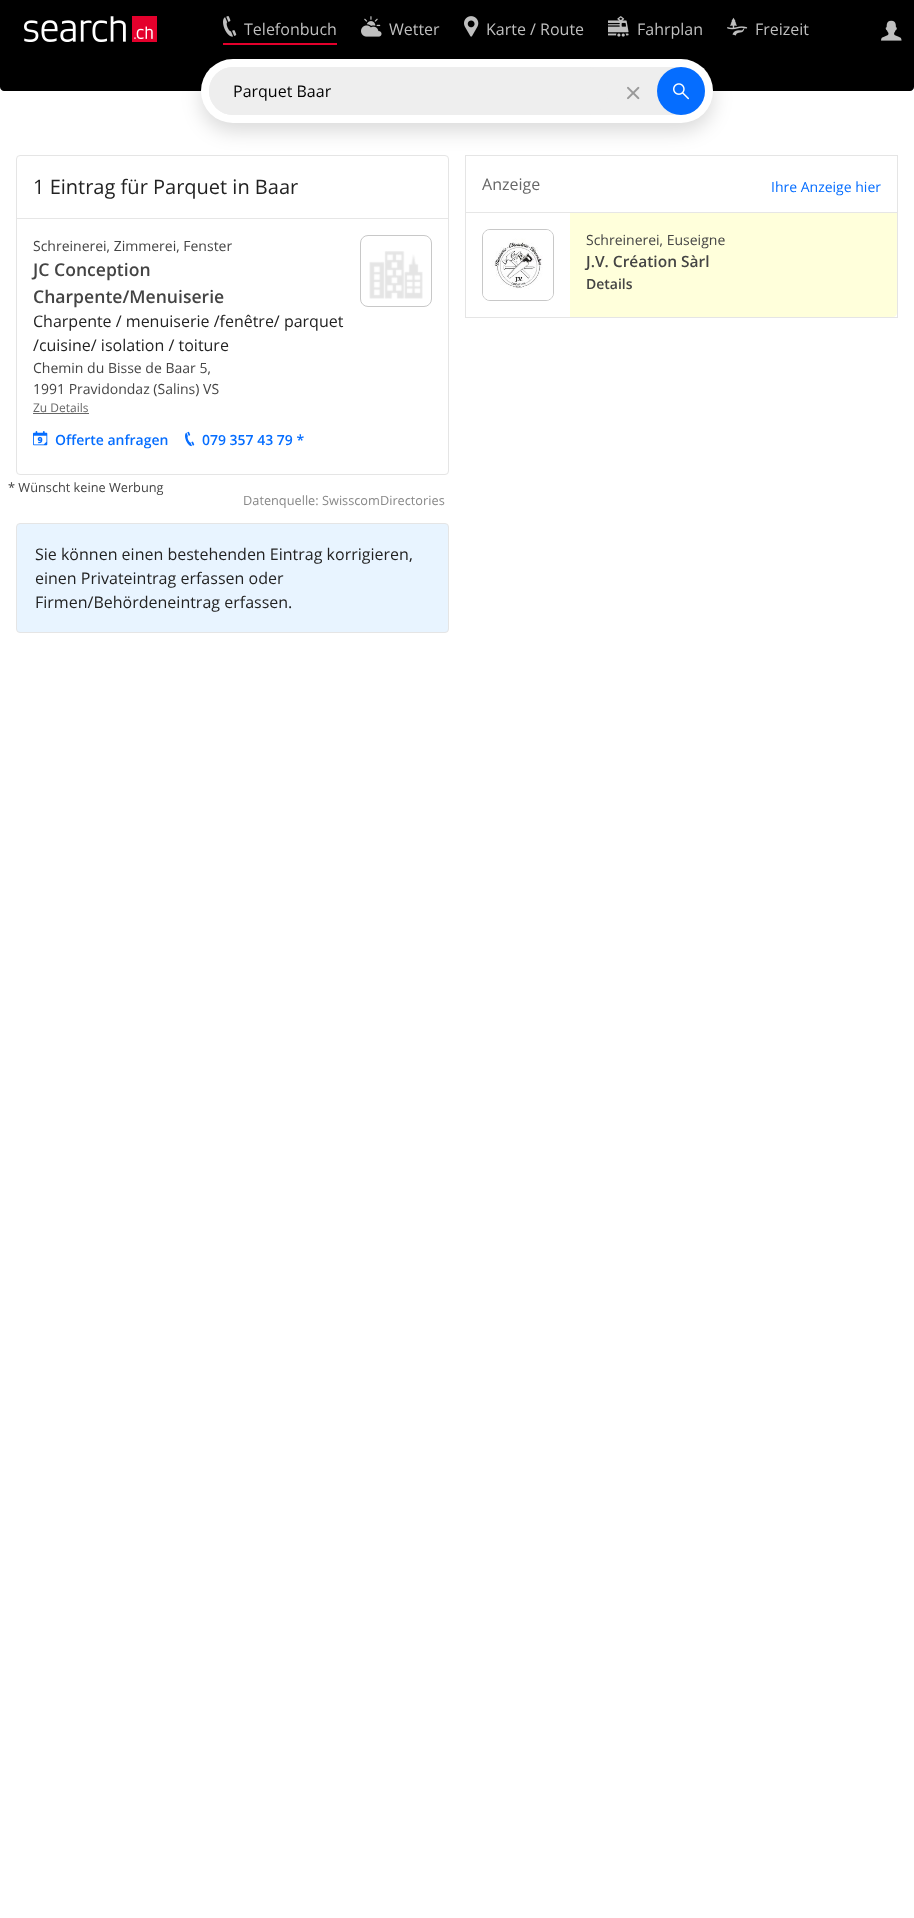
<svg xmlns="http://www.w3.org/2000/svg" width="914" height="1918">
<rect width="100%" height="100%" fill="#fff"/>
<rect width="914" height="59" fill="#000"/>
<image x="24" y="16" width="133" height="26" href="media/1.png"/>
<rect x="223" y="43" width="114" height="2" fill="#e4002c"/>
<image x="223" y="16" width="14" height="21" href="media/2.png"/>
<text x="244" y="35" style="font-family:Open Sans;font-size:16px;fill:#bfbfbf">Telefonbuch</text>
<image x="361" y="16" width="21" height="21" href="media/3.png"/>
<text x="389" y="35" style="font-family:Open Sans;font-size:16px;fill:#bfbfbf">Wetter</text>
<image x="464" y="16" width="15" height="21" href="media/4.png"/>
<text x="486" y="35" style="font-family:Open Sans;font-size:16px;fill:#bfbfbf">Karte / Route</text>
<image x="608" y="16" width="21" height="21" href="media/5.png"/>
<text x="637" y="35" style="font-family:Open Sans;font-size:16px;fill:#bfbfbf">Fahrplan</text>
<image x="727" y="17" width="21" height="19" href="media/6.png"/>
<text x="755" y="35" style="font-family:Open Sans;font-size:16px;fill:#bfbfbf">Freizeit</text>
<image x="881" y="20" width="21" height="21" href="media/7.png"/>
<path d="M0 59h914v28c0 2-2 4-4 4h-906c-2 0-4-2-4-4z" fill="#000"/>
<rect x="16.5" y="155.5" width="432" height="319" rx="3.5" fill="none" stroke="#e5e5e5"/>
<rect x="465.5" y="155.5" width="432" height="162" fill="none" stroke="#e5e5e5"/>
<rect x="201" y="67" width="512" height="64" rx="32" fill="#00000026" filter="blur(10px)"/>
<rect x="201" y="59" width="512" height="64" rx="32" fill="#fff"/>
<rect x="209" y="67" width="496" height="48" rx="24" fill="#eee"/>
<rect x="209" y="67" width="400" height="48" rx="24" fill="#eee"/>
<text x="233" y="97" style="font-family:Open Sans;font-size:16px;fill:#000">Parquet Baar</text>
<image x="627" y="86" width="13" height="14" href="media/8.png"/>
<circle cx="681" cy="91" r="24" fill="#056dff"/>
<image x="673" y="83" width="16" height="17" href="media/9.png"/>
<text x="33" y="194" style="font-family:Open Sans;font-size:20px;fill:#222">1 Eintrag für Parquet in Baar</text>
<rect x="17" y="218" width="431" height="1" fill="#e6e6e6"/>
<text x="33" y="251" style="font-family:Open Sans;font-size:14px;fill:#444">Schreinerei, Zimmerei, Fenster</text>
<text x="33" y="276" style="font-family:Open Sans;font-size:17.6px;font-weight:600;fill:#444">JC Conception</text>
<text x="33" y="303" style="font-family:Open Sans;font-size:17.6px;font-weight:600;fill:#444">Charpente/Menuiserie</text>
<text x="33" y="327" style="font-family:Open Sans;font-size:16px;fill:#222">Charpente / menuiserie /fenêtre/ parquet</text>
<text x="33" y="351" style="font-family:Open Sans;font-size:16px;fill:#222">/cuisine/ isolation / toiture</text>
<text x="33" y="373" style="font-family:Open Sans;font-size:14px;fill:#444">Chemin du Bisse de Baar 5,</text>
<text x="33" y="394" style="font-family:Open Sans;font-size:14px;fill:#444">1991 Pravidondaz (Salins) VS</text>
<text x="33" y="412" style="font-family:Open Sans;font-size:12px;fill:#666">Zu Details</text>
<rect x="33" y="413" width="56" height="1" fill="#666"/>
<image x="33" y="431" width="15" height="15" href="media/10.png"/>
<text x="55" y="445" style="font-family:Open Sans;font-size:14px;font-weight:600;fill:#056dff">Offerte anfragen</text>
<image x="185" y="431" width="10" height="16" href="media/11.png"/>
<text x="202" y="445" style="font-family:Open Sans;font-size:14px;font-weight:600;fill:#056dff">079 357 43 79 *</text>
<rect x="360.5" y="235.5" width="71" height="71" rx="7.5" fill="none" stroke="#c8c8c8"/>
<image x="369" y="251" width="54" height="48" href="media/12.png"/>
<text x="8" y="492" style="font-family:Open Sans;font-size:12.75px;fill:#444">* Wünscht keine Werbung</text>
<text x="243" y="505" style="font-family:Open Sans;font-size:12.75px;fill:#888">Datenquelle: SwisscomDirectories</text>
<rect x="16.5" y="523.5" width="432" height="109" rx="3.5" fill="#e8f4ff" stroke="#e5e5e5"/>
<text x="35" y="560" style="font-family:Open Sans;font-size:16px;fill:#222">Sie können einen bestehenden Eintrag korrigieren,</text>
<text x="35" y="584" style="font-family:Open Sans;font-size:16px;fill:#222">einen Privateintrag erfassen oder</text>
<text x="35" y="608" style="font-family:Open Sans;font-size:16px;fill:#222">Firmen/Behördeneintrag erfassen.</text>
<text x="482" y="190" style="font-family:Open Sans;font-size:16px;fill:#666">Anzeige</text>
<text x="771" y="192" style="font-family:Open Sans;font-size:14px;fill:#056dff">Ihre Anzeige hier</text>
<rect x="466" y="212" width="431" height="1" fill="#e6e6e6"/>
<rect x="482.5" y="229.5" width="71" height="71" rx="7.5" fill="none" stroke="#c8c8c8"/>
<image x="483" y="230" width="70" height="70" href="media/13.png"/>
<path d="M570 213h327v100c0 2-2 4-4 4h-323z" fill="#ffffdb"/>
<text x="586" y="245" style="font-family:Open Sans;font-size:14px;fill:#444">Schreinerei, Euseigne</text>
<text x="586" y="267" style="font-family:Open Sans;font-size:15.5px;font-weight:600;fill:#444">J.V. Création Sàrl</text>
<text x="586" y="289" style="font-family:Open Sans;font-size:14px;font-weight:600;fill:#444">Details</text>
</svg>
